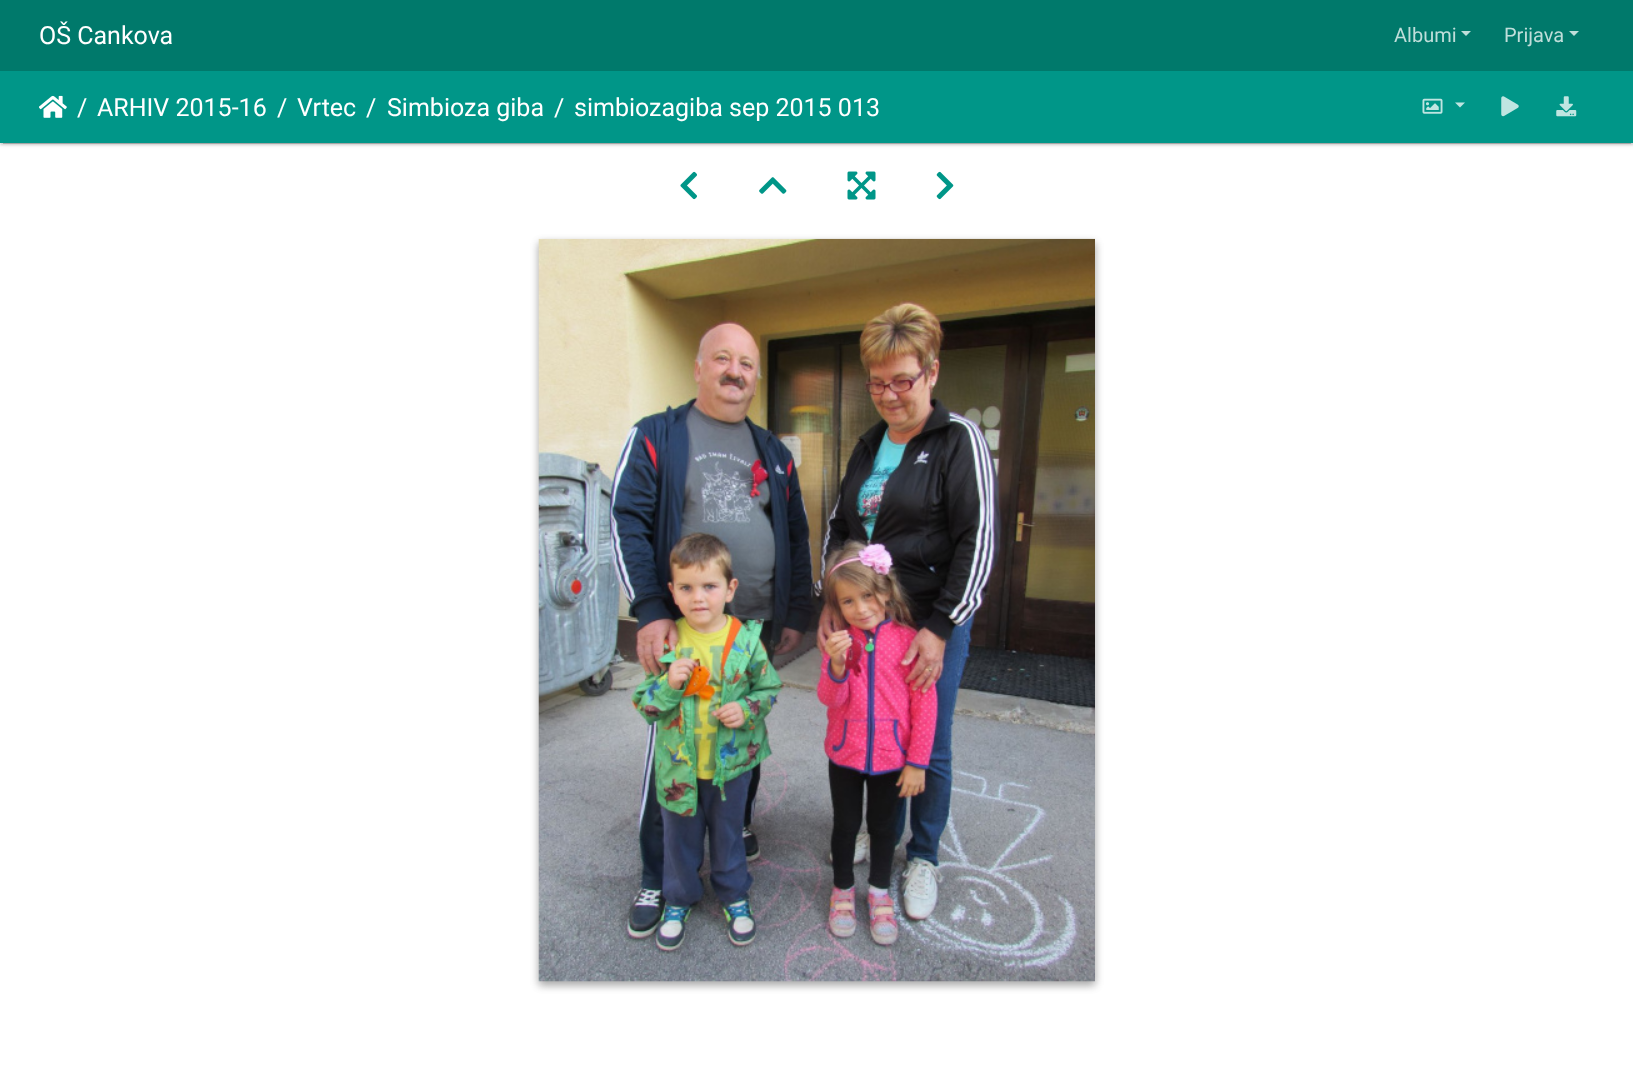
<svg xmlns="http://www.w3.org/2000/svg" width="1633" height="1069">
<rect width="100%" height="100%" fill="#fff"/>
<rect y="73" width="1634" height="71" fill="#0000001f" filter="blur(3px)"/>
<rect y="74" width="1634" height="71" fill="#00000024" filter="blur(1px)"/>
<rect width="1633" height="71" fill="#00796b"/>
<text x="39" y="44" style="font-family:Roboto;font-size:25px;fill:#fff">OŠ Cankova</text>
<text x="1394" y="42" style="font-family:Roboto;font-size:20px;fill:#bfdeda">Albumi</text>
<path d="M1461 31h10l-5 5z" fill="#bfdeda"/>
<text x="1504" y="42" style="font-family:Roboto;font-size:20px;fill:#bfdeda">Prijava</text>
<path d="M1569 31h10l-5 5z" fill="#bfdeda"/>
<rect x="3" y="78" width="1628" height="66" fill="#00000033" filter="blur(0.5px)"/>
<rect y="71" width="1633" height="72" fill="#009688"/>
<image x="39" y="95" width="28" height="23" href="media/1.png"/>
<text x="77" y="116" style="font-family:Roboto;font-size:25px;fill:#fff">/</text>
<text x="97" y="116" style="font-family:Roboto;font-size:25px;fill:#fff">ARHIV 2015-16</text>
<text x="277" y="116" style="font-family:Roboto;font-size:25px;fill:#fff">/</text>
<text x="297" y="116" style="font-family:Roboto;font-size:25px;fill:#fff">Vrtec</text>
<text x="366" y="116" style="font-family:Roboto;font-size:25px;fill:#fff">/</text>
<text x="387" y="116" style="font-family:Roboto;font-size:25px;fill:#fff">Simbioza giba</text>
<text x="554" y="116" style="font-family:Roboto;font-size:25px;fill:#fff">/</text>
<text x="574" y="116" style="font-family:Roboto;font-size:25px;fill:#fff">simbiozagiba sep 2015 013</text>
<image x="1422" y="98" width="21" height="16" href="media/2.png"/>
<path d="M1455 102.5h10l-5 5z" fill="#bfe5e1"/>
<image x="1501" y="96" width="18" height="21" href="media/3.png"/>
<image x="1556" y="96" width="21" height="21" href="media/4.png"/>
<image x="680" y="171" width="17" height="29" href="media/5.png"/>
<image x="759" y="177" width="28" height="17" href="media/6.png"/>
<image x="847" y="171" width="29" height="29" href="media/7.png"/>
<image x="936" y="171" width="18" height="29" href="media/8.png"/>
<rect x="539" y="243" width="556" height="742" fill="#0000003b" filter="blur(4px)"/>
<rect x="539" y="243" width="556" height="742" fill="#00000029" filter="blur(4px)"/>
<image x="538" y="238" width="557" height="744" href="media/9.png"/>
</svg>
